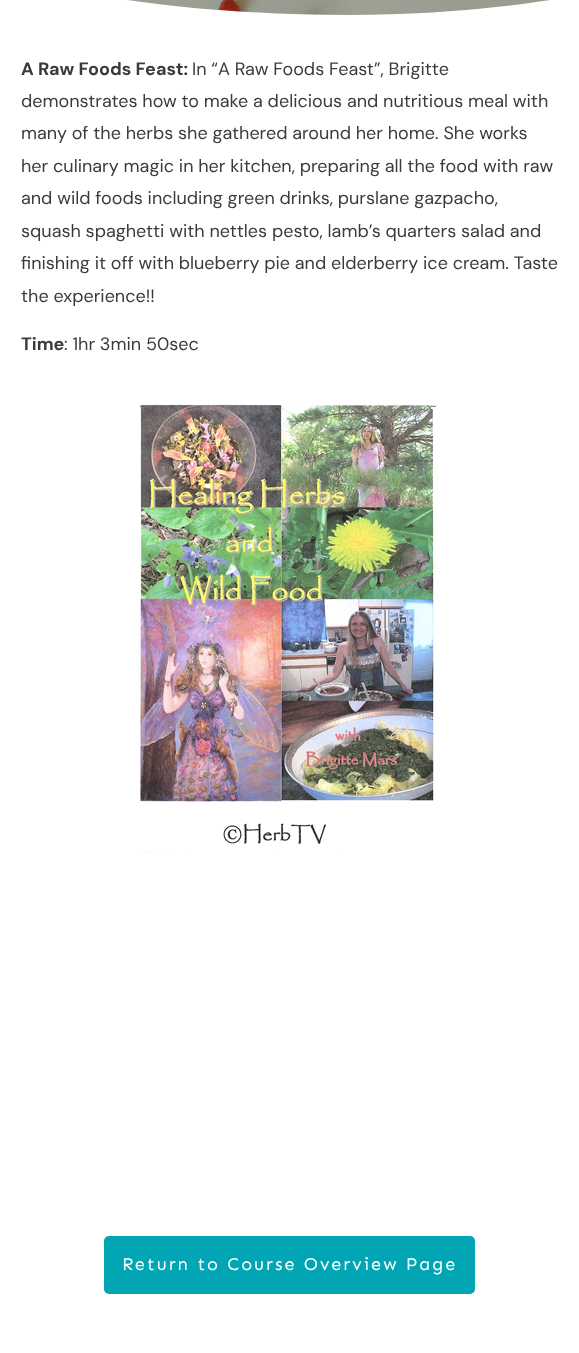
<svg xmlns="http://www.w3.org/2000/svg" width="579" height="1353">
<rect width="100%" height="100%" fill="#fff"/>
<image x="127" y="0" width="423" height="15" href="media/1.png"/>
<path d="M579 22v-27c-64 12-144 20-230 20c-147 0-279-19-349-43v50z" fill="#fff"/>
<text x="21" y="75" style="font-family:DM Sans;font-size:18px;font-weight:bold;fill:#3b3b3b">A Raw Foods Feast:</text>
<text x="192" y="75" style="font-family:DM Sans;font-size:18px;fill:#3b3b3b">In “A Raw Foods Feast”, Brigitte</text>
<text x="21" y="107" style="font-family:DM Sans;font-size:18px;fill:#3b3b3b">demonstrates how to make a delicious and nutritious meal with</text>
<text x="21" y="139" style="font-family:DM Sans;font-size:18px;fill:#3b3b3b">many of the herbs she gathered around her home. She works</text>
<text x="21" y="172" style="font-family:DM Sans;font-size:18px;fill:#3b3b3b">her culinary magic in her kitchen, preparing all the food with raw</text>
<text x="21" y="204" style="font-family:DM Sans;font-size:18px;fill:#3b3b3b">and wild foods including green drinks, purslane gazpacho,</text>
<text x="21" y="237" style="font-family:DM Sans;font-size:18px;fill:#3b3b3b">squash spaghetti with nettles pesto, lamb’s quarters salad and</text>
<text x="21" y="269" style="font-family:DM Sans;font-size:18px;fill:#3b3b3b">finishing it off with blueberry pie and elderberry ice cream. Taste</text>
<text x="21" y="302" style="font-family:DM Sans;font-size:18px;fill:#3b3b3b">the experience!!</text>
<text x="21" y="350" style="font-family:DM Sans;font-size:18px;font-weight:bold;fill:#3b3b3b">Time</text>
<text x="64" y="350" style="font-family:DM Sans;font-size:18px;fill:#3b3b3b">: 1hr 3min 50sec</text>
<image x="140" y="404" width="297" height="448" href="media/2.png"/>
<rect x="104" y="1236" width="371" height="58" rx="5" fill="#01a5b3"/>
<text x="122" y="1270" style="font-family:Sen;font-size:18px;letter-spacing:2px;fill:#fff">Return to Course Overview Page</text>
</svg>
